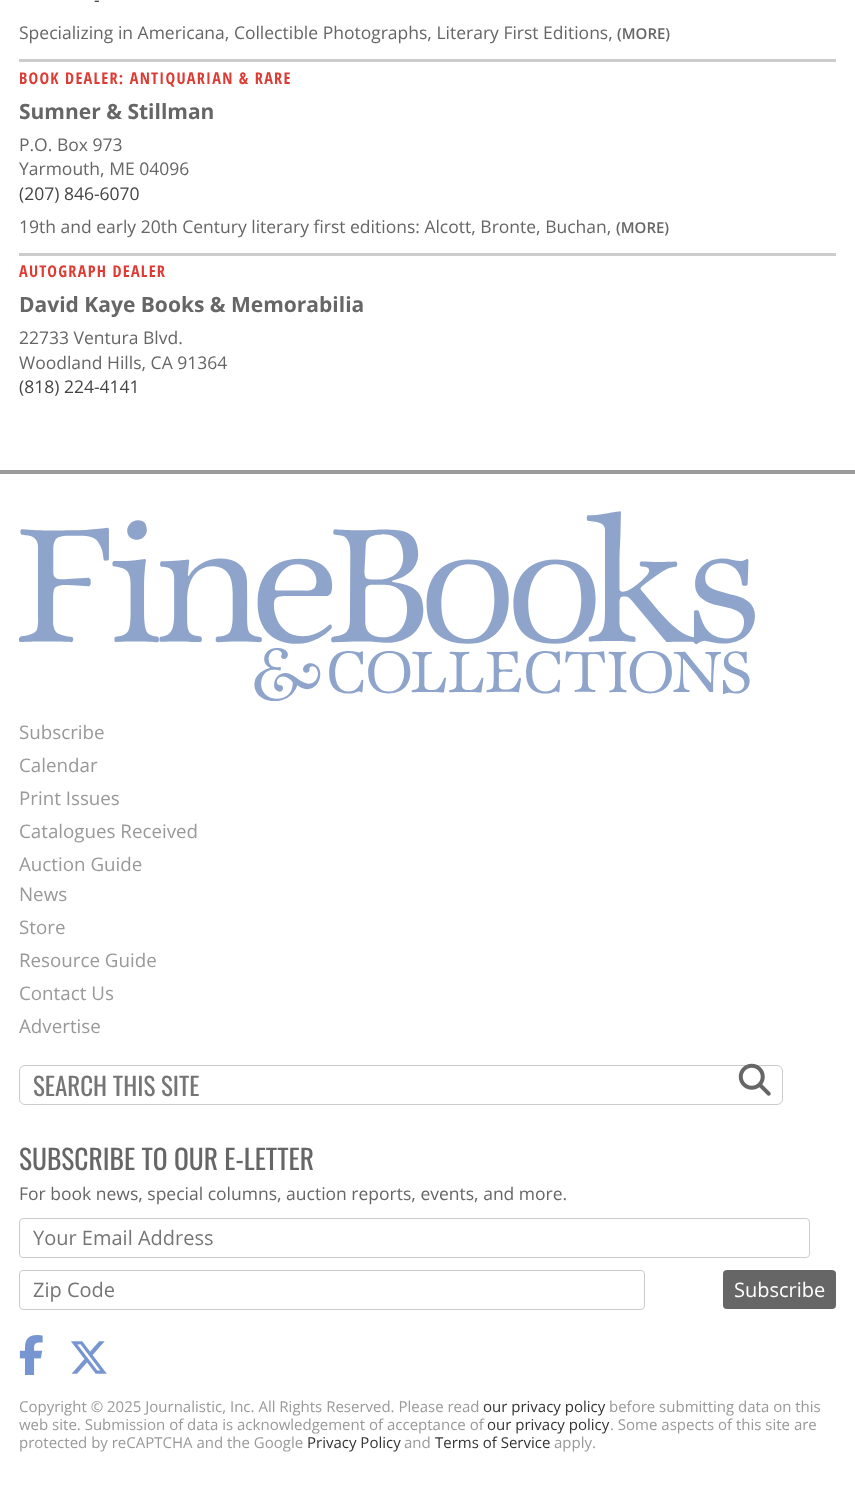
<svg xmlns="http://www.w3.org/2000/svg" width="855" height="1491">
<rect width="100%" height="100%" fill="#fff"/>
<rect x="19" y="59" width="817" height="3" fill="#ccc"/>
<text x="94" y="6" style="font-family:Open Sans;font-size:17.5px;fill:#444">-</text>
<text x="19" y="39" style="font-family:Open Sans;font-size:17.5px;fill:#666">Specializing in Americana, Collectible Photographs, Literary First Editions,</text>
<text x="617" y="39" style="font-family:Open Sans;font-size:15px;font-weight:600;fill:#666">(MORE)</text>
<rect x="19" y="253" width="817" height="3" fill="#ccc"/>
<text x="19" y="84" style="font-family:Open Sans Condensed;font-size:16.25px;font-weight:bold;letter-spacing:1.25px;fill:#dd3b33">BOOK DEALER: ANTIQUARIAN &amp; RARE</text>
<text x="19" y="119" style="font-family:Open Sans;font-size:21px;font-weight:bold;fill:#666">Sumner &amp; Stillman</text>
<text x="19" y="151" style="font-family:Open Sans;font-size:17.5px;fill:#666">P.O. Box 973</text>
<text x="19" y="175" style="font-family:Open Sans;font-size:17.5px;fill:#666">Yarmouth, ME 04096</text>
<text x="19" y="200" style="font-family:Open Sans;font-size:17.5px;fill:#444">(207) 846-6070</text>
<text x="19" y="233" style="font-family:Open Sans;font-size:17.5px;fill:#666">19th and early 20th Century literary first editions: Alcott, Bronte, Buchan,</text>
<text x="616" y="233" style="font-family:Open Sans;font-size:15px;font-weight:600;fill:#666">(MORE)</text>
<text x="19" y="277" style="font-family:Open Sans Condensed;font-size:16.25px;font-weight:bold;letter-spacing:1.25px;fill:#dd3b33">AUTOGRAPH DEALER</text>
<text x="19" y="312" style="font-family:Open Sans;font-size:21px;font-weight:bold;fill:#666">David Kaye Books &amp; Memorabilia</text>
<text x="19" y="344" style="font-family:Open Sans;font-size:17.5px;fill:#666">22733 Ventura Blvd.</text>
<text x="19" y="369" style="font-family:Open Sans;font-size:17.5px;fill:#666">Woodland Hills, CA 91364</text>
<text x="19" y="393" style="font-family:Open Sans;font-size:17.5px;fill:#444">(818) 224-4141</text>
<rect y="470" width="855" height="4" fill="#999"/>
<image x="19" y="511" width="736" height="190" href="media/1.png"/>
<text x="19" y="739" style="font-family:Open Sans;font-size:18.75px;fill:#999">Subscribe</text>
<text x="19" y="772" style="font-family:Open Sans;font-size:18.75px;fill:#999">Calendar</text>
<text x="19" y="805" style="font-family:Open Sans;font-size:18.75px;fill:#999">Print Issues</text>
<text x="19" y="838" style="font-family:Open Sans;font-size:18.75px;fill:#999">Catalogues Received</text>
<text x="19" y="871" style="font-family:Open Sans;font-size:18.75px;fill:#999">Auction Guide</text>
<text x="19" y="901" style="font-family:Open Sans;font-size:18.75px;fill:#999">News</text>
<text x="19" y="934" style="font-family:Open Sans;font-size:18.75px;fill:#999">Store</text>
<text x="19" y="967" style="font-family:Open Sans;font-size:18.75px;fill:#999">Resource Guide</text>
<text x="19" y="1000" style="font-family:Open Sans;font-size:18.75px;fill:#999">Contact Us</text>
<text x="19" y="1033" style="font-family:Open Sans;font-size:18.75px;fill:#999">Advertise</text>
<rect x="19.5" y="1065.5" width="763" height="39" rx="5.5" fill="none" stroke="#ccc"/>
<text x="33" y="1096" style="font-family:Oswald;font-size:25px;fill:#757575">SEARCH THIS SITE</text>
<image x="738" y="1063" width="33" height="33" href="media/2.png"/>
<text x="19" y="1170" style="font-family:Oswald;font-size:27.5px;fill:#666">SUBSCRIBE TO OUR E-LETTER</text>
<text x="19" y="1200" style="font-family:Open Sans;font-size:17.5px;fill:#666">For book news, special columns, auction reports, events, and more.</text>
<rect x="19.5" y="1218.5" width="790" height="39" rx="3.5" fill="none" stroke="#ccc"/>
<text x="33" y="1245" style="font-family:Open Sans;font-size:20px;fill:#757575">Your Email Address</text>
<rect x="19.5" y="1270.5" width="625" height="39" rx="3.5" fill="none" stroke="#ccc"/>
<text x="33" y="1297" style="font-family:Open Sans;font-size:20px;fill:#757575">Zip Code</text>
<rect x="723" y="1270" width="113" height="39" rx="4" fill="#666"/>
<text x="734" y="1297" style="font-family:Open Sans;font-size:20px;fill:#fff">Subscribe</text>
<image x="19" y="1335" width="24" height="40" href="media/3.png"/>
<image x="71" y="1341" width="36" height="33" href="media/4.png"/>
<text x="19" y="1412" style="font-family:Open Sans;font-size:15px;fill:#999">Copyright © 2025 Journalistic, Inc. All Rights Reserved. Please read</text>
<text x="483" y="1412" style="font-family:Open Sans;font-size:15px;fill:#333">our privacy policy</text>
<text x="609" y="1412" style="font-family:Open Sans;font-size:15px;fill:#999">before submitting data on this</text>
<text x="19" y="1430" style="font-family:Open Sans;font-size:15px;fill:#999">web site. Submission of data is acknowledgement of acceptance of</text>
<text x="487" y="1430" style="font-family:Open Sans;font-size:15px;fill:#333">our privacy policy</text>
<text x="610" y="1430" style="font-family:Open Sans;font-size:15px;fill:#999">. Some aspects of this site are</text>
<text x="19" y="1448" style="font-family:Open Sans;font-size:15px;fill:#999">protected by reCAPTCHA and the Google</text>
<text x="307" y="1448" style="font-family:Open Sans;font-size:15px;fill:#333">Privacy Policy</text>
<text x="404" y="1448" style="font-family:Open Sans;font-size:15px;fill:#999">and</text>
<text x="435" y="1448" style="font-family:Open Sans;font-size:15px;fill:#333">Terms of Service</text>
<text x="554" y="1448" style="font-family:Open Sans;font-size:15px;fill:#999">apply.</text>
</svg>
